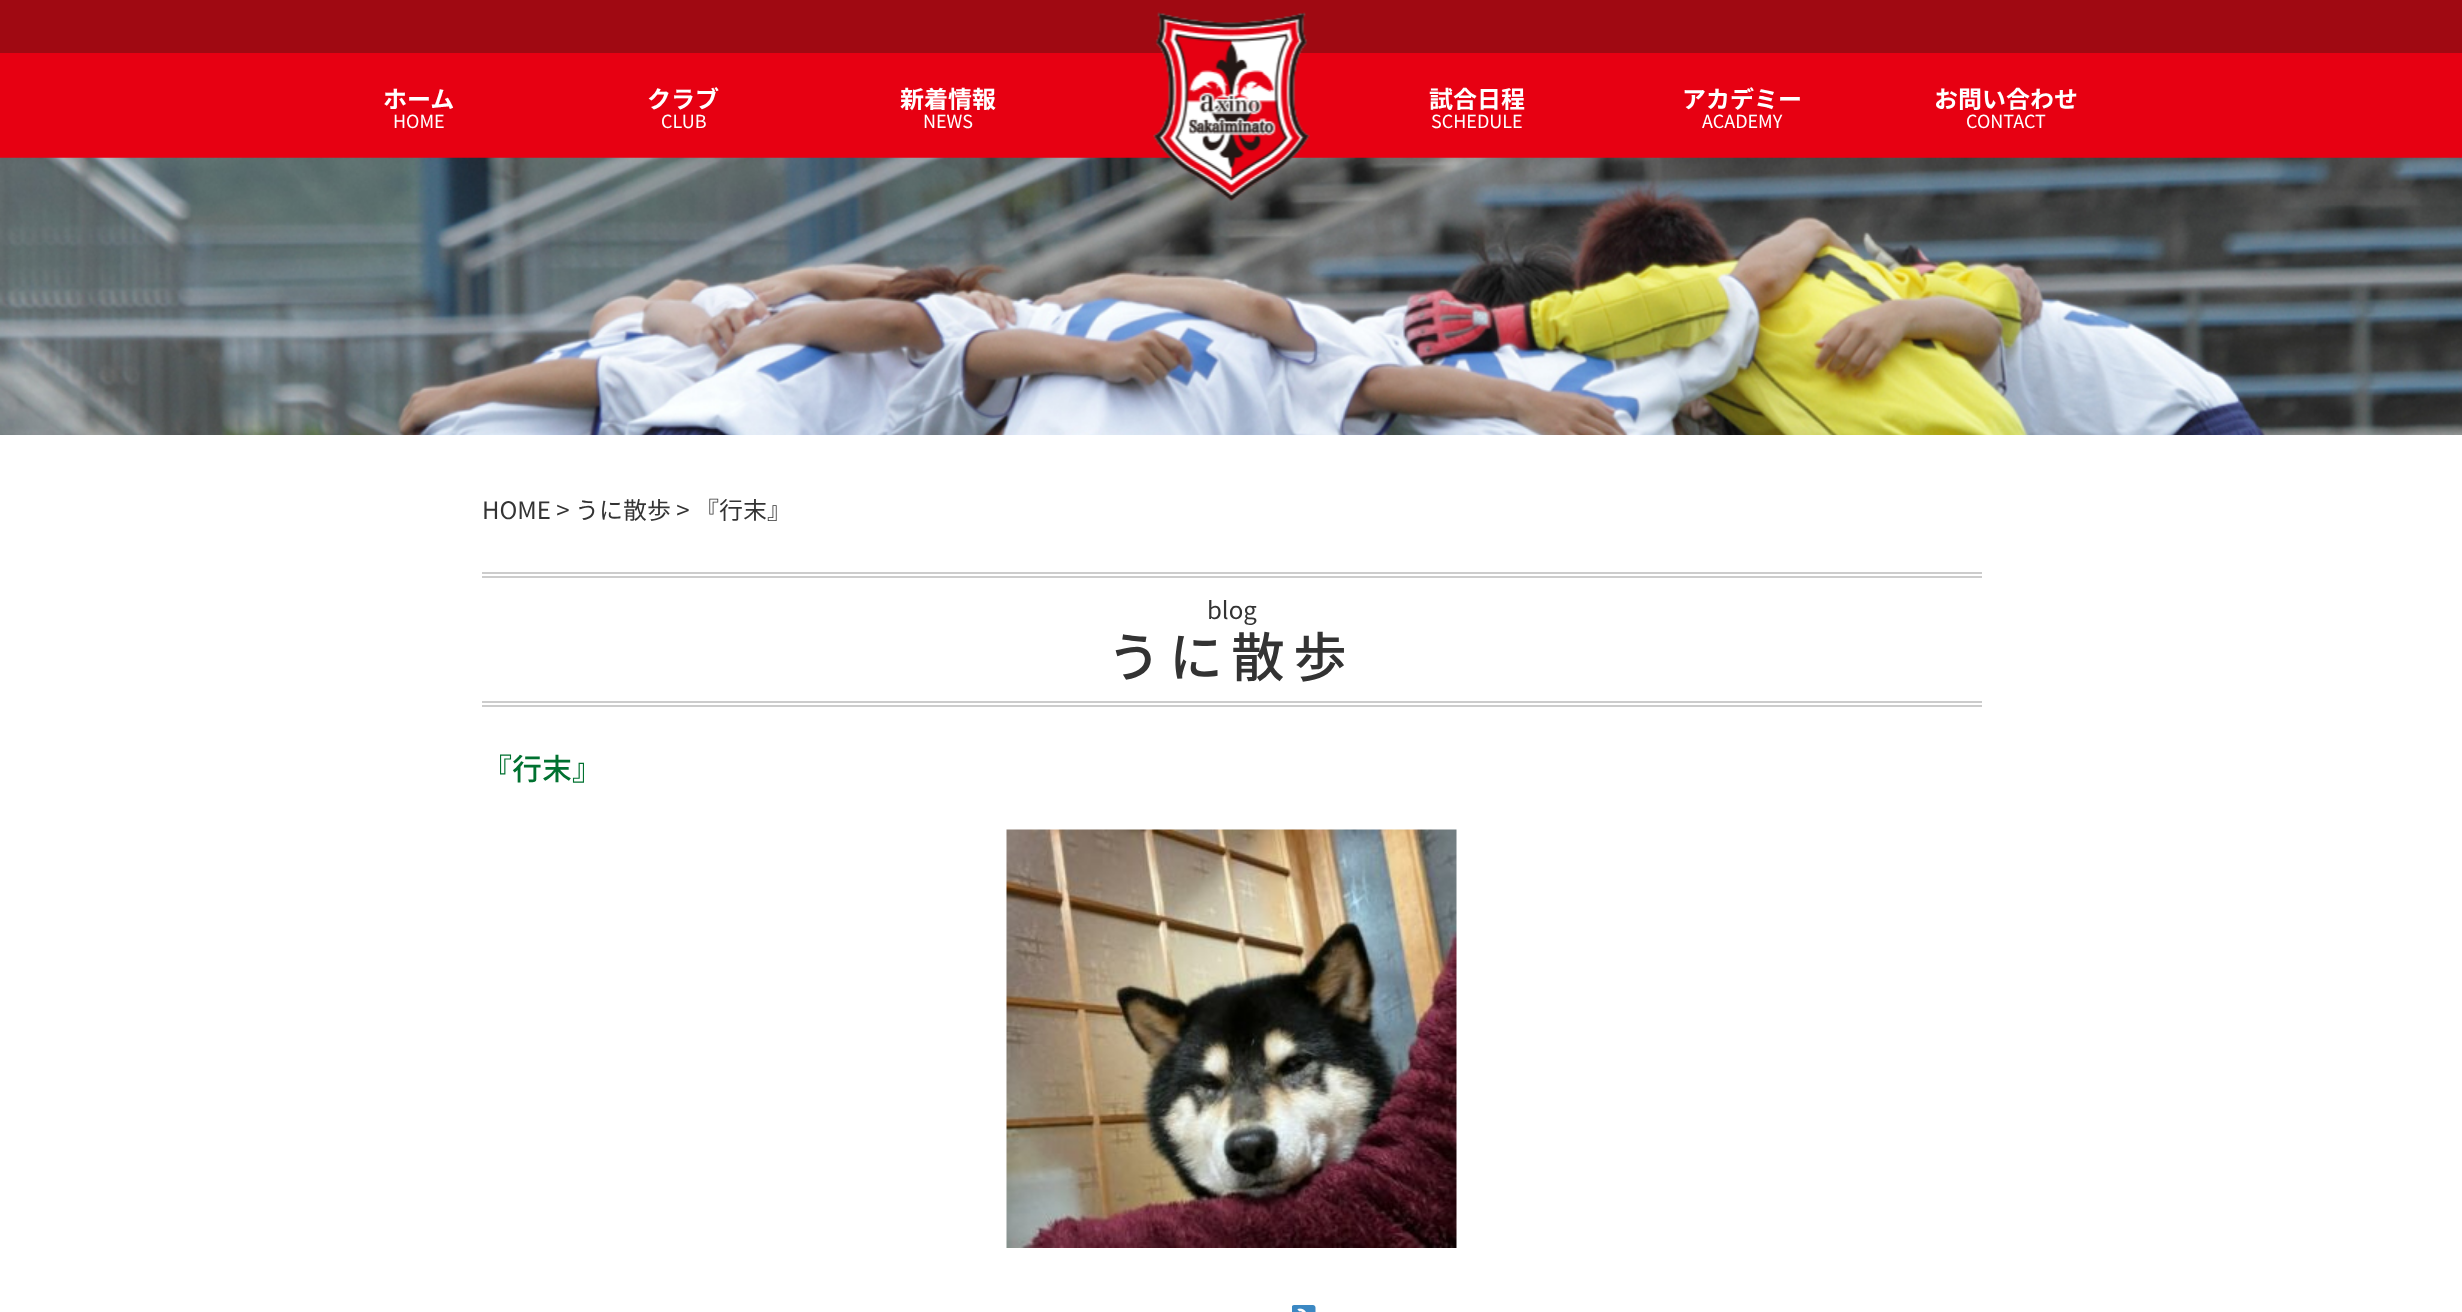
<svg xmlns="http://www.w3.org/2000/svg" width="2462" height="1312">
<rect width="100%" height="100%" fill="#fff"/>
<rect width="2462" height="53" fill="#a00912"/>
<rect y="53" width="2462" height="105" fill="#e70012"/>
<image x="0" y="157" width="2462" height="278" href="media/2.png"/>
<image x="1153" y="12" width="157" height="189" href="media/1.png"/>
<text x="383" y="108" style="font-family:Noto Sans JP;font-size:24px;font-weight:bold;fill:#fff">ホーム</text>
<text x="393" y="128" style="font-family:Noto Sans JP;font-size:18px;fill:#fff">HOME</text>
<text x="647" y="108" style="font-family:Noto Sans JP;font-size:24px;font-weight:bold;fill:#fff">クラブ</text>
<text x="661" y="128" style="font-family:Noto Sans JP;font-size:18px;fill:#fff">CLUB</text>
<text x="900" y="108" style="font-family:Noto Sans JP;font-size:24px;font-weight:bold;fill:#fff">新着情報</text>
<text x="923" y="128" style="font-family:Noto Sans JP;font-size:18px;fill:#fff">NEWS</text>
<text x="1429" y="108" style="font-family:Noto Sans JP;font-size:24px;font-weight:bold;fill:#fff">試合日程</text>
<text x="1431" y="128" style="font-family:Noto Sans JP;font-size:18px;fill:#fff">SCHEDULE</text>
<text x="1682" y="108" style="font-family:Noto Sans JP;font-size:24px;font-weight:bold;fill:#fff">アカデミー</text>
<text x="1702" y="128" style="font-family:Noto Sans JP;font-size:18px;fill:#fff">ACADEMY</text>
<text x="1934" y="108" style="font-family:Noto Sans JP;font-size:24px;font-weight:bold;fill:#fff">お問い合わせ</text>
<text x="1966" y="128" style="font-family:Noto Sans JP;font-size:18px;fill:#fff">CONTACT</text>
<text x="482" y="519" style="font-family:Noto Sans JP;font-size:24px;fill:#333">HOME &gt; うに散歩 &gt; 『行末』</text>
<rect x="482" y="572" width="1500" height="2" fill="#ccc"/>
<rect x="482" y="576" width="1500" height="2" fill="#ccc"/>
<rect x="482" y="701" width="1500" height="2" fill="#ccc"/>
<rect x="482" y="705" width="1500" height="2" fill="#ccc"/>
<text x="1207" y="619" style="font-family:Noto Sans JP;font-size:24px;fill:#333">blog</text>
<text x="1107" y="677" style="font-family:Noto Sans JP;font-size:54px;font-weight:500;letter-spacing:8px;fill:#333">うに散歩</text>
<text x="482" y="780" style="font-family:Noto Sans JP;font-size:30px;font-weight:500;fill:#007130">『行末』</text>
<image x="1006" y="829" width="451" height="419" href="media/3.png"/>
<image x="1292" y="1305" width="24" height="7" href="media/4.png"/>
</svg>
